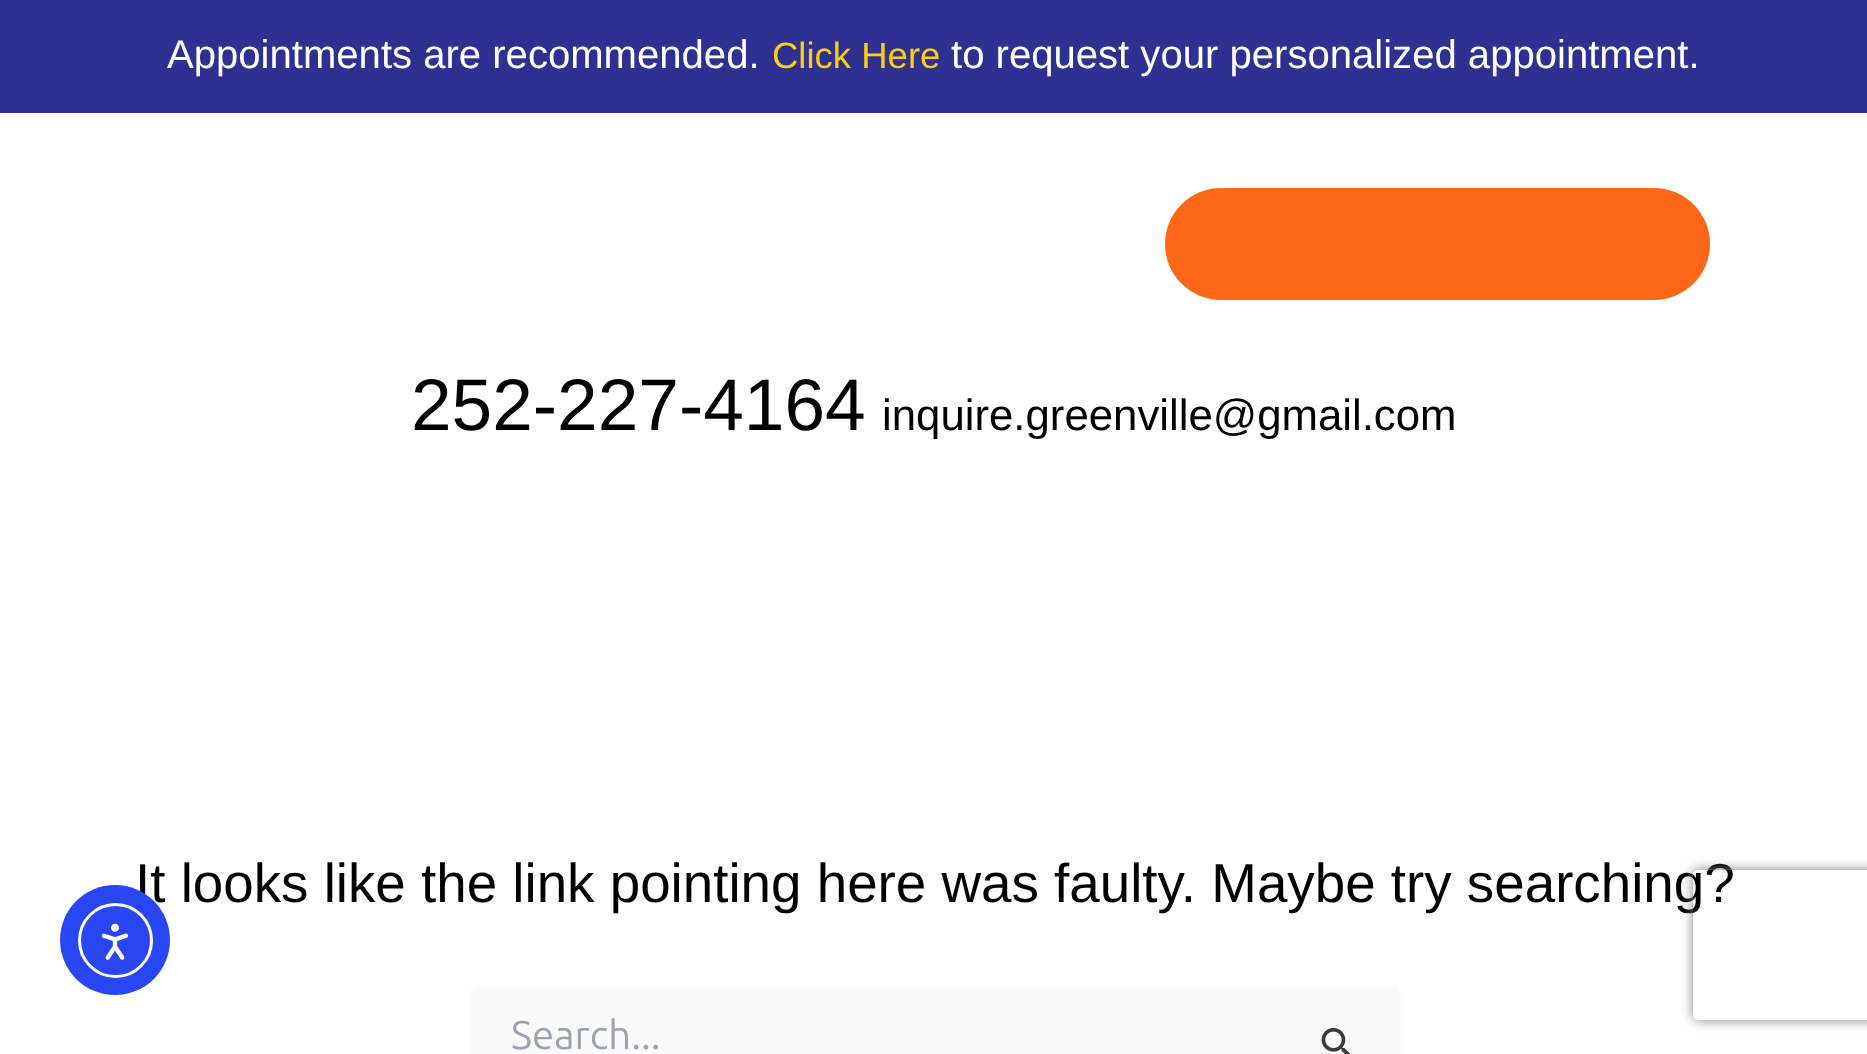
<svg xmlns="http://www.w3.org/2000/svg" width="1867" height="1054">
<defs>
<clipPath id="clip1"><path d="M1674 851h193v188h-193zm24 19h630c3 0 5 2 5 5v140c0 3-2 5-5 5h-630c-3 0-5-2-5-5v-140c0-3 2-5 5-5z" clip-rule="evenodd"/></clipPath>
</defs>
<rect width="100%" height="100%" fill="#fff"/>
<text x="135" y="902" style="font-family:Liberation Sans;font-size:54.75px;fill:#000">It looks like the link pointing here was faulty. Maybe try searching?</text>
<circle cx="115" cy="940" r="55" fill="#2847f3"/>
<circle cx="115.5" cy="940.5" r="36" fill="none" stroke="#fff" stroke-width="3"/>
<image x="101" y="923" width="28" height="37" href="media/1.png"/>
<rect width="1867" height="113" fill="#2f3192"/>
<text x="167" y="68" style="font-family:Liberation Sans;font-size:40.1px;fill:#fff">Appointments are recommended.</text>
<text x="772" y="68" style="font-family:Liberation Sans;font-size:36.5px;fill:#fdcd10">Click Here</text>
<text x="951" y="68" style="font-family:Liberation Sans;font-size:40.1px;fill:#fff">to request your personalized appointment.</text>
<rect x="1165" y="188" width="545" height="112" rx="56" fill="#fe6618"/>
<text x="411" y="430" style="font-family:Liberation Sans;font-size:73px;fill:#000">252-227-4164</text>
<text x="882" y="430" style="font-family:Liberation Sans;font-size:43.75px;fill:#000">inquire.greenville@gmail.com</text>
<rect x="473" y="988" width="925" height="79" rx="5" fill="#0000000d" filter="blur(2.5px)"/>
<rect x="473" y="985" width="925" height="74" rx="5" fill="#fafafa"/>
<text x="511" y="1049" style="font-family:Ubuntu;font-size:40px;fill:#9ca3af">Search...</text>
<image x="1321" y="1027" width="30" height="27" href="media/2.png"/>
<g clip-path="url(#clip1)">
<rect x="1693" y="870" width="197" height="150" rx="5" fill="#808080" filter="blur(6px)"/>
</g>
</svg>
